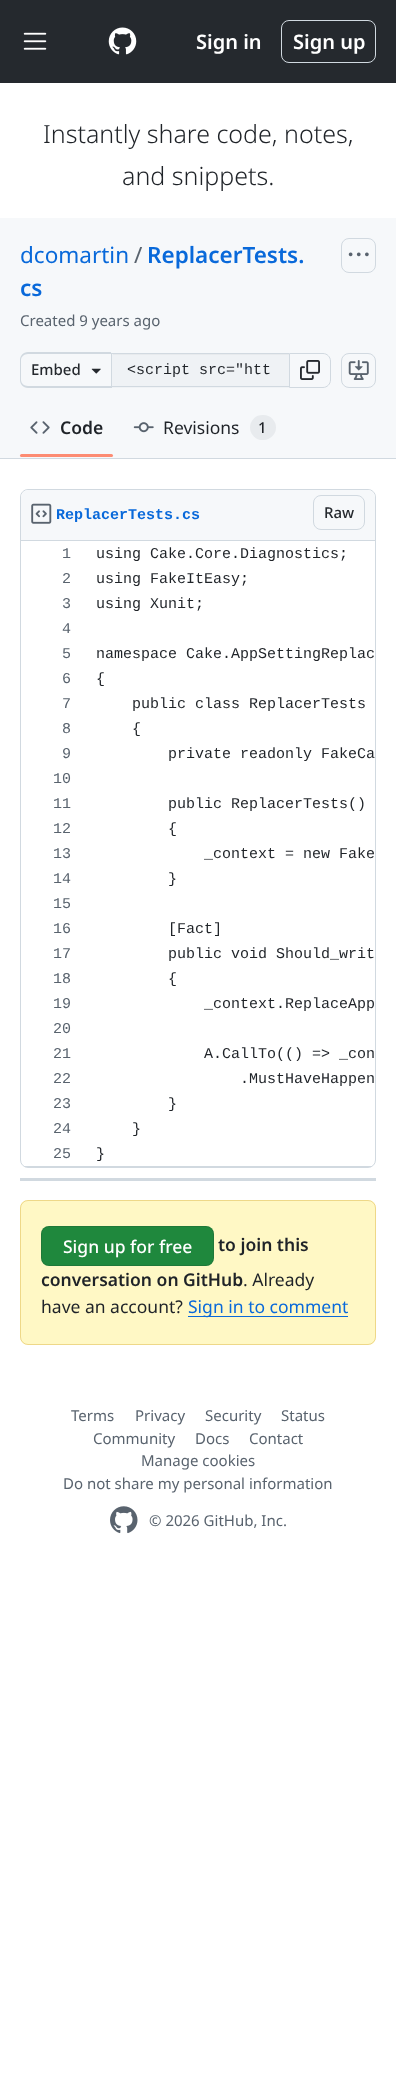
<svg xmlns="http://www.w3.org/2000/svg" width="396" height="2075">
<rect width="100%" height="100%" fill="#fff"/>
<rect width="396" height="83" fill="#25292e"/>
<image x="23" y="32" width="24" height="18" href="media/1.png"/>
<image x="108" y="27" width="29" height="28" href="media/2.png"/>
<text x="196" y="49" style="font-family:Noto Sans;font-size:20px;font-weight:600;fill:#fff">Sign in</text>
<rect x="281.5" y="20.5" width="94" height="42" rx="7.5" fill="none" stroke="#d1d9e0"/>
<text x="293" y="49" style="font-family:Noto Sans;font-size:20px;font-weight:600;fill:#fff">Sign up</text>
<text x="43" y="143" style="font-family:Noto Sans;font-size:25px;font-weight:300;fill:#1f2328">Instantly share code, notes,</text>
<text x="122" y="185" style="font-family:Noto Sans;font-size:25px;font-weight:300;fill:#1f2328">and snippets.</text>
<rect y="218" width="396" height="240" fill="#f6f8fa"/>
<rect y="458" width="396" height="1" fill="#d1d9e0"/>
<text x="20" y="263" style="font-family:Noto Sans;font-size:22.5px;fill:#0969da">dcomartin</text>
<text x="134" y="263" style="font-family:Noto Sans;font-size:22.5px;fill:#59636e">/</text>
<text x="147" y="263" style="font-family:Noto Sans;font-size:22.5px;font-weight:600;fill:#0969da">ReplacerTests.</text>
<text x="20" y="296" style="font-family:Noto Sans;font-size:22.5px;font-weight:600;fill:#0969da">cs</text>
<text x="20" y="326" style="font-family:Noto Sans;font-size:15px;fill:#59636e">Created 9 years ago</text>
<rect x="341.5" y="238.5" width="34" height="34" rx="7.5" fill="none" stroke="#d1d9e0"/>
<image x="348" y="252" width="21" height="5" href="media/3.png"/>
<path d="M28 352h83v36h-83c-5 0-8-4-8-8v-20c0-4 3-8 8-8zm0 2h83v32h-83c-4 0-7-3-7-6v-20c0-3 3-6 7-6z" fill="#d1d9e0" fill-rule="evenodd"/>
<text x="31" y="375" style="font-family:Noto Sans;font-size:15px;font-weight:500;fill:#25292e">Embed</text>
<image x="91" y="368" width="10" height="6" href="media/4.png"/>
<rect x="112" y="354" width="177" height="34" fill="#eff2f5"/>
<rect x="113" y="354" width="176" height="1" fill="#e7eaed"/>
<rect x="111" y="353" width="178" height="1" fill="#d1d9e0"/>
<rect x="111" y="386" width="178" height="1" fill="#d1d9e0"/>
<rect x="111" y="353" width="1" height="35" fill="#d1d9e0"/>
<text x="127" y="374" style="font-family:Liberation Mono;font-size:15px;fill:#1f2328">&lt;script src="htt</text>
<path d="M289.5 353.5h33.5c4 0 7.5 3.5 7.5 7.5v19c0 4-3.5 7.5-7.5 7.5h-33.5z" fill="none" stroke="#d1d9e0"/>
<image x="300" y="360" width="20" height="20" href="media/5.png"/>
<rect x="341.5" y="353.5" width="34" height="34" rx="7.5" fill="none" stroke="#d1d9e0"/>
<image x="348" y="360" width="21" height="20" href="media/6.png"/>
<image x="30" y="421" width="20" height="13" href="media/7.png"/>
<text x="60" y="434" style="font-family:Noto Sans;font-size:17.5px;font-weight:600;fill:#1f2328">Code</text>
<rect x="20" y="454" width="93" height="3" rx="1.5" fill="#fd8c73"/>
<image x="133" y="422" width="21" height="11" href="media/8.png"/>
<text x="163" y="434" style="font-family:Noto Sans;font-size:17.5px;fill:#1f2328">Revisions</text>
<rect x="250" y="415" width="26" height="25" rx="12.5" fill="#e8ebee"/>
<text x="258" y="433" style="font-family:Noto Sans;font-size:15px;font-weight:500;fill:#1f2328">1</text>
<rect x="20.5" y="489.5" width="355" height="678" rx="7.5" fill="none" stroke="#d1d9e0"/>
<path d="M29 490h338c4.5 0 8 3.5 8 8v43h-354v-43c0-4.5 3.5-8 8-8z" fill="#f6f8fa"/>
<rect x="21" y="540" width="354" height="1" fill="#d1d9e0"/>
<image x="31" y="503" width="21" height="21" href="media/9.png"/>
<text x="56" y="519" style="font-family:Liberation Mono;font-size:15px;font-weight:bold;fill:#0969da">ReplacerTests.cs</text>
<rect x="313.5" y="495.5" width="51" height="34" rx="7.5" fill="none" stroke="#d1d9e0"/>
<text x="324" y="518" style="font-family:Noto Sans;font-size:15px;font-weight:500;fill:#25292e">Raw</text>
<rect x="25" y="1166" width="346" height="1" fill="#d1d9e0"/>
<text x="62" y="558" style="font-family:Liberation Mono;font-size:15px;fill:#59636e">1</text>
<text x="96" y="558" style="font-family:Liberation Mono;font-size:15px;fill:#1f2328">using Cake.Core.Diagnostics;</text>
<text x="62" y="583" style="font-family:Liberation Mono;font-size:15px;fill:#59636e">2</text>
<text x="96" y="583" style="font-family:Liberation Mono;font-size:15px;fill:#1f2328">using FakeItEasy;</text>
<text x="62" y="608" style="font-family:Liberation Mono;font-size:15px;fill:#59636e">3</text>
<text x="96" y="608" style="font-family:Liberation Mono;font-size:15px;fill:#1f2328">using Xunit;</text>
<text x="62" y="633" style="font-family:Liberation Mono;font-size:15px;fill:#59636e">4</text>
<text x="62" y="658" style="font-family:Liberation Mono;font-size:15px;fill:#59636e">5</text>
<text x="96" y="658" style="font-family:Liberation Mono;font-size:15px;fill:#1f2328">namespace Cake.AppSettingReplac</text>
<text x="62" y="683" style="font-family:Liberation Mono;font-size:15px;fill:#59636e">6</text>
<text x="96" y="683" style="font-family:Liberation Mono;font-size:15px;fill:#1f2328">{</text>
<text x="62" y="708" style="font-family:Liberation Mono;font-size:15px;fill:#59636e">7</text>
<text x="132" y="708" style="font-family:Liberation Mono;font-size:15px;fill:#1f2328">public class ReplacerTests</text>
<text x="62" y="733" style="font-family:Liberation Mono;font-size:15px;fill:#59636e">8</text>
<text x="132" y="733" style="font-family:Liberation Mono;font-size:15px;fill:#1f2328">{</text>
<text x="62" y="758" style="font-family:Liberation Mono;font-size:15px;fill:#59636e">9</text>
<text x="168" y="758" style="font-family:Liberation Mono;font-size:15px;fill:#1f2328">private readonly FakeCa</text>
<text x="53" y="783" style="font-family:Liberation Mono;font-size:15px;fill:#59636e">10</text>
<text x="53" y="808" style="font-family:Liberation Mono;font-size:15px;fill:#59636e">11</text>
<text x="168" y="808" style="font-family:Liberation Mono;font-size:15px;fill:#1f2328">public ReplacerTests()</text>
<text x="53" y="833" style="font-family:Liberation Mono;font-size:15px;fill:#59636e">12</text>
<text x="168" y="833" style="font-family:Liberation Mono;font-size:15px;fill:#1f2328">{</text>
<text x="53" y="858" style="font-family:Liberation Mono;font-size:15px;fill:#59636e">13</text>
<text x="204" y="858" style="font-family:Liberation Mono;font-size:15px;fill:#1f2328">_context = new Fake</text>
<text x="53" y="883" style="font-family:Liberation Mono;font-size:15px;fill:#59636e">14</text>
<text x="168" y="883" style="font-family:Liberation Mono;font-size:15px;fill:#1f2328">}</text>
<text x="53" y="908" style="font-family:Liberation Mono;font-size:15px;fill:#59636e">15</text>
<text x="53" y="933" style="font-family:Liberation Mono;font-size:15px;fill:#59636e">16</text>
<text x="168" y="933" style="font-family:Liberation Mono;font-size:15px;fill:#1f2328">[Fact]</text>
<text x="53" y="958" style="font-family:Liberation Mono;font-size:15px;fill:#59636e">17</text>
<text x="168" y="958" style="font-family:Liberation Mono;font-size:15px;fill:#1f2328">public void Should_writ</text>
<text x="53" y="983" style="font-family:Liberation Mono;font-size:15px;fill:#59636e">18</text>
<text x="168" y="983" style="font-family:Liberation Mono;font-size:15px;fill:#1f2328">{</text>
<text x="53" y="1008" style="font-family:Liberation Mono;font-size:15px;fill:#59636e">19</text>
<text x="204" y="1008" style="font-family:Liberation Mono;font-size:15px;fill:#1f2328">_context.ReplaceApp</text>
<text x="53" y="1033" style="font-family:Liberation Mono;font-size:15px;fill:#59636e">20</text>
<text x="53" y="1058" style="font-family:Liberation Mono;font-size:15px;fill:#59636e">21</text>
<text x="204" y="1058" style="font-family:Liberation Mono;font-size:15px;fill:#1f2328">A.CallTo(() =&gt; _con</text>
<text x="53" y="1083" style="font-family:Liberation Mono;font-size:15px;fill:#59636e">22</text>
<text x="240" y="1083" style="font-family:Liberation Mono;font-size:15px;fill:#1f2328">.MustHaveHappen</text>
<text x="53" y="1108" style="font-family:Liberation Mono;font-size:15px;fill:#59636e">23</text>
<text x="168" y="1108" style="font-family:Liberation Mono;font-size:15px;fill:#1f2328">}</text>
<text x="53" y="1133" style="font-family:Liberation Mono;font-size:15px;fill:#59636e">24</text>
<text x="132" y="1133" style="font-family:Liberation Mono;font-size:15px;fill:#1f2328">}</text>
<text x="53" y="1158" style="font-family:Liberation Mono;font-size:15px;fill:#59636e">25</text>
<text x="96" y="1158" style="font-family:Liberation Mono;font-size:15px;fill:#1f2328">}</text>
<rect x="20" y="1178" width="356" height="3" fill="#d1d9e0"/>
<rect x="20" y="1200" width="356" height="145" rx="8" fill="#fff8c5"/>
<rect x="20.5" y="1200.5" width="355" height="144" rx="7.5" fill="none" stroke="#d4a72c66"/>
<rect x="41" y="1226" width="173" height="40" rx="8" fill="#1f883d"/>
<rect x="41.5" y="1226.5" width="172" height="39" rx="7.5" fill="none" stroke="#1f232826"/>
<text x="63" y="1253" style="font-family:Noto Sans;font-size:17.5px;font-weight:500;fill:#fff">Sign up for free</text>
<text x="218" y="1251" style="font-family:Noto Sans;font-size:17.5px;font-weight:600;fill:#1f2328">to join this</text>
<text x="41" y="1286" style="font-family:Noto Sans;font-size:17.5px;font-weight:600;fill:#1f2328">conversation on GitHub</text>
<text x="243" y="1286" style="font-family:Noto Sans;font-size:17.5px;fill:#1f2328">. Already</text>
<text x="41" y="1313" style="font-family:Noto Sans;font-size:17.5px;fill:#1f2328">have an account?</text>
<rect x="188" y="1316" width="160" height="1" fill="#0969da"/>
<text x="188" y="1313" style="font-family:Noto Sans;font-size:17.5px;fill:#0969da">Sign in to comment</text>
<text x="71" y="1421" style="font-family:Noto Sans;font-size:15px;fill:#59636e">Terms</text>
<text x="135" y="1421" style="font-family:Noto Sans;font-size:15px;fill:#59636e">Privacy</text>
<text x="205" y="1421" style="font-family:Noto Sans;font-size:15px;fill:#59636e">Security</text>
<text x="281" y="1421" style="font-family:Noto Sans;font-size:15px;fill:#59636e">Status</text>
<text x="93" y="1444" style="font-family:Noto Sans;font-size:15px;fill:#59636e">Community</text>
<text x="195" y="1444" style="font-family:Noto Sans;font-size:15px;fill:#59636e">Docs</text>
<text x="249" y="1444" style="font-family:Noto Sans;font-size:15px;fill:#59636e">Contact</text>
<text x="141" y="1466" style="font-family:Noto Sans;font-size:15px;fill:#59636e">Manage cookies</text>
<text x="63" y="1489" style="font-family:Noto Sans;font-size:15px;fill:#59636e">Do not share my personal information</text>
<image x="110" y="1506" width="28" height="28" href="media/10.png"/>
<text x="149" y="1526" style="font-family:Noto Sans;font-size:15px;fill:#59636e">© 2026 GitHub, Inc.</text>
</svg>
